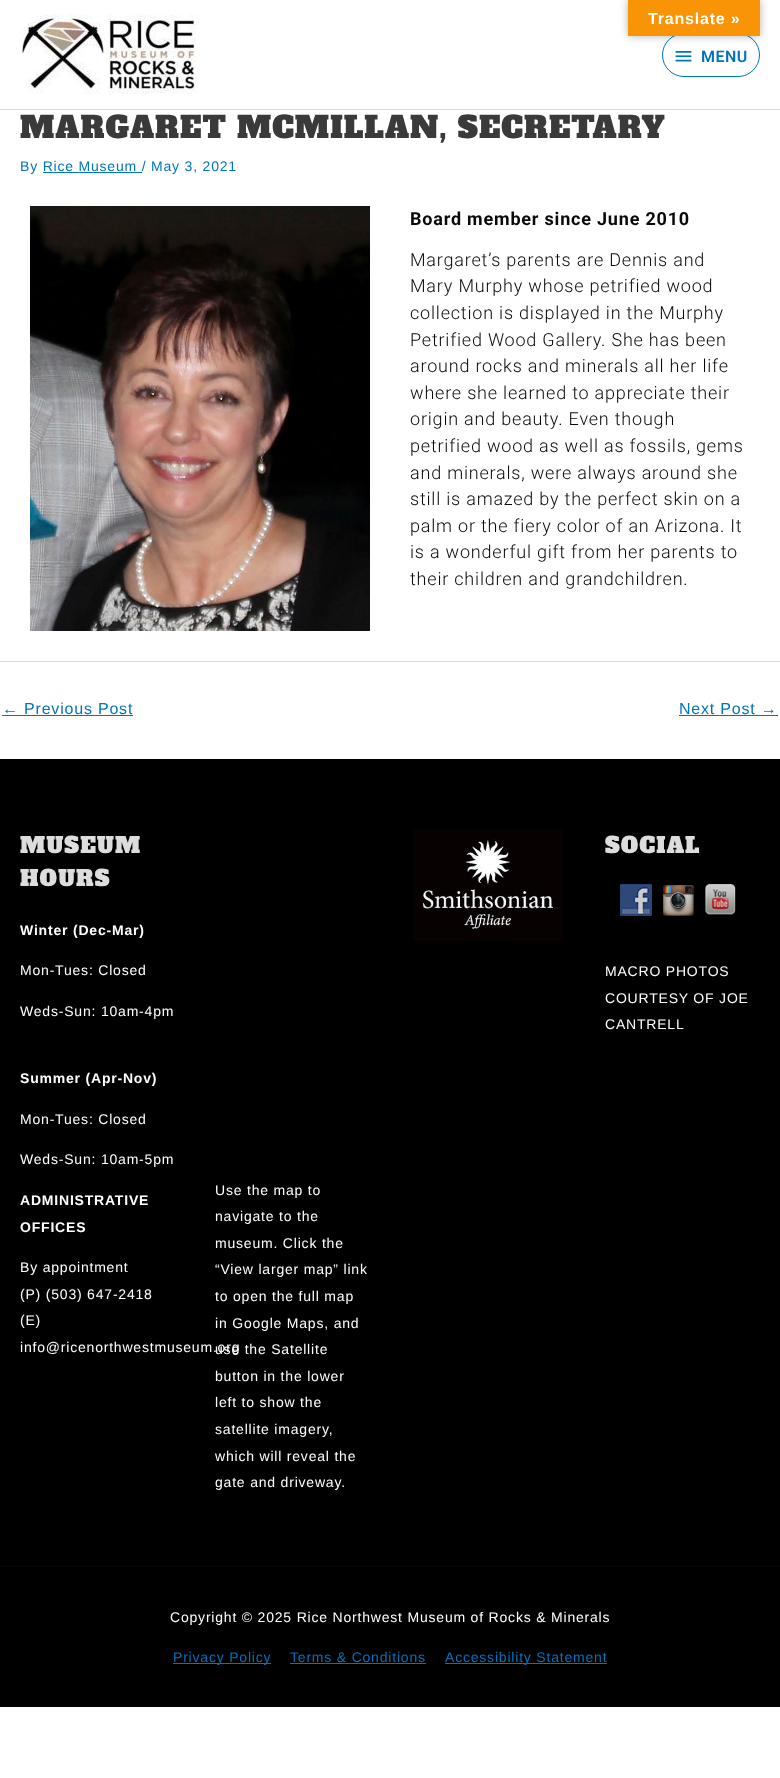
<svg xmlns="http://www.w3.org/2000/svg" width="780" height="1778">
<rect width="100%" height="100%" fill="#fff"/>
<rect x="662.5" y="33.5" width="97" height="43" rx="21.5" fill="none" stroke="#0274be"/>
<rect x="628" width="132" height="36" fill="#0000004d" filter="blur(4.5px)"/>
<rect x="628" width="132" height="36" fill="#f89406"/>
<text x="648" y="24" style="font-family:Liberation Sans;font-size:16px;font-weight:bold;letter-spacing:0.8px;fill:#fff">Translate »</text>
<rect y="109" width="780" height="1" fill="#ddd"/>
<image x="20" y="14" width="179" height="80" href="media/1.png"/>
<image x="675" y="51" width="17" height="11" href="media/2.png"/>
<text x="701" y="62" style="font-family:Roboto;font-size:16px;font-weight:600;letter-spacing:0.5px;fill:#0274be">MENU</text>
<text x="20" y="138" style="font-family:Alfa Slab One;font-size:30px;letter-spacing:1px;fill:#3a3a3a">MARGARET MCMILLAN, SECRETARY</text>
<text x="20" y="171" style="font-family:Liberation Sans;font-size:14px;letter-spacing:0.8px;fill:#0274be">By Rice Museum / May 3, 2021</text>
<rect x="43" y="172" width="99" height="1" fill="#0374be"/>
<image x="30" y="206" width="340" height="425" href="media/3.png"/>
<text x="410" y="225" style="font-family:Roboto;font-size:18px;font-weight:bold;letter-spacing:0.8px;fill:#090909">Board member since June 2010</text>
<text x="410" y="266" style="font-family:Roboto;font-size:18px;font-weight:300;letter-spacing:0.8px;fill:#090909">Margaret’s parents are Dennis and</text>
<text x="410" y="292" style="font-family:Roboto;font-size:18px;font-weight:300;letter-spacing:0.8px;fill:#090909">Mary Murphy whose petrified wood</text>
<text x="410" y="319" style="font-family:Roboto;font-size:18px;font-weight:300;letter-spacing:0.8px;fill:#090909">collection is displayed in the Murphy</text>
<text x="410" y="346" style="font-family:Roboto;font-size:18px;font-weight:300;letter-spacing:0.8px;fill:#090909">Petrified Wood Gallery. She has been</text>
<text x="410" y="372" style="font-family:Roboto;font-size:18px;font-weight:300;letter-spacing:0.8px;fill:#090909">around rocks and minerals all her life</text>
<text x="410" y="399" style="font-family:Roboto;font-size:18px;font-weight:300;letter-spacing:0.8px;fill:#090909">where she learned to appreciate their</text>
<text x="410" y="425" style="font-family:Roboto;font-size:18px;font-weight:300;letter-spacing:0.8px;fill:#090909">origin and beauty. Even though</text>
<text x="410" y="452" style="font-family:Roboto;font-size:18px;font-weight:300;letter-spacing:0.8px;fill:#090909">petrified wood as well as fossils, gems</text>
<text x="410" y="479" style="font-family:Roboto;font-size:18px;font-weight:300;letter-spacing:0.8px;fill:#090909">and minerals, were always around she</text>
<text x="410" y="505" style="font-family:Roboto;font-size:18px;font-weight:300;letter-spacing:0.8px;fill:#090909">still is amazed by the perfect skin on a</text>
<text x="410" y="532" style="font-family:Roboto;font-size:18px;font-weight:300;letter-spacing:0.8px;fill:#090909">palm or the fiery color of an Arizona. It</text>
<text x="410" y="558" style="font-family:Roboto;font-size:18px;font-weight:300;letter-spacing:0.8px;fill:#090909">is a wonderful gift from her parents to</text>
<text x="410" y="585" style="font-family:Roboto;font-size:18px;font-weight:300;letter-spacing:0.8px;fill:#090909">their children and grandchildren.</text>
<rect y="661" width="780" height="1" fill="#ddd"/>
<text x="2" y="714" style="font-family:Liberation Sans;font-size:16px;letter-spacing:0.8px;fill:#0274be">← Previous Post</text>
<rect x="2" y="715" width="131" height="1" fill="#0274be"/>
<text x="679" y="714" style="font-family:Liberation Sans;font-size:16px;letter-spacing:0.8px;fill:#0274be">Next Post →</text>
<rect x="679" y="715" width="99" height="1" fill="#0274be"/>
<rect y="759" width="780" height="807" fill="#000"/>
<text x="20" y="853" style="font-family:Alfa Slab One;font-size:22px;letter-spacing:1px;fill:#ddd">MUSEUM</text>
<text x="20" y="886" style="font-family:Alfa Slab One;font-size:22px;letter-spacing:1px;fill:#ddd">HOURS</text>
<text x="20" y="935" style="font-family:Liberation Sans;font-size:14px;font-weight:bold;letter-spacing:0.8px;fill:#fff">Winter (Dec-Mar)</text>
<text x="20" y="975" style="font-family:Liberation Sans;font-size:14px;letter-spacing:0.8px;fill:#fff">Mon-Tues: Closed</text>
<text x="20" y="1016" style="font-family:Liberation Sans;font-size:14px;letter-spacing:0.8px;fill:#fff">Weds-Sun: 10am-4pm</text>
<text x="20" y="1083" style="font-family:Liberation Sans;font-size:14px;font-weight:bold;letter-spacing:0.8px;fill:#fff">Summer (Apr-Nov)</text>
<text x="20" y="1124" style="font-family:Liberation Sans;font-size:14px;letter-spacing:0.8px;fill:#fff">Mon-Tues: Closed</text>
<text x="20" y="1164" style="font-family:Liberation Sans;font-size:14px;letter-spacing:0.8px;fill:#fff">Weds-Sun: 10am-5pm</text>
<text x="20" y="1205" style="font-family:Liberation Sans;font-size:14px;font-weight:bold;letter-spacing:0.8px;fill:#fff">ADMINISTRATIVE</text>
<text x="20" y="1232" style="font-family:Liberation Sans;font-size:14px;font-weight:bold;letter-spacing:0.8px;fill:#fff">OFFICES</text>
<text x="20" y="1272" style="font-family:Liberation Sans;font-size:14px;letter-spacing:0.8px;fill:#fff">By appointment</text>
<text x="20" y="1299" style="font-family:Liberation Sans;font-size:14px;letter-spacing:0.8px;fill:#fff">(P) (503) 647-2418</text>
<text x="20" y="1325" style="font-family:Liberation Sans;font-size:14px;letter-spacing:0.8px;fill:#fff">(E)</text>
<text x="20" y="1352" style="font-family:Liberation Sans;font-size:14px;letter-spacing:0.8px;fill:#fff">info@ricenorthwestmuseum.org</text>
<image x="413" y="829" width="150" height="112" href="media/4.png"/>
<text x="605" y="853" style="font-family:Alfa Slab One;font-size:22px;letter-spacing:1px;fill:#ddd">SOCIAL</text>
<image x="620" y="884" width="32" height="32" href="media/5.png"/>
<image x="663" y="885" width="31" height="31" href="media/6.png"/>
<image x="705" y="884" width="31" height="31" href="media/7.png"/>
<text x="605" y="976" style="font-family:Liberation Sans;font-size:14px;letter-spacing:0.8px;fill:#fff">MACRO PHOTOS</text>
<text x="605" y="1003" style="font-family:Liberation Sans;font-size:14px;letter-spacing:0.8px;fill:#fff">COURTESY OF JOE</text>
<text x="605" y="1029" style="font-family:Liberation Sans;font-size:14px;letter-spacing:0.8px;fill:#fff">CANTRELL</text>
<text x="215" y="1195" style="font-family:Liberation Sans;font-size:14px;letter-spacing:0.8px;fill:#fff">Use the map to</text>
<text x="215" y="1221" style="font-family:Liberation Sans;font-size:14px;letter-spacing:0.8px;fill:#fff">navigate to the</text>
<text x="215" y="1248" style="font-family:Liberation Sans;font-size:14px;letter-spacing:0.8px;fill:#fff">museum. Click the</text>
<text x="215" y="1274" style="font-family:Liberation Sans;font-size:14px;letter-spacing:0.8px;fill:#fff">“View larger map” link</text>
<text x="215" y="1301" style="font-family:Liberation Sans;font-size:14px;letter-spacing:0.8px;fill:#fff">to open the full map</text>
<text x="215" y="1328" style="font-family:Liberation Sans;font-size:14px;letter-spacing:0.8px;fill:#fff">in Google Maps, and</text>
<text x="215" y="1354" style="font-family:Liberation Sans;font-size:14px;letter-spacing:0.8px;fill:#fff">use the Satellite</text>
<text x="215" y="1381" style="font-family:Liberation Sans;font-size:14px;letter-spacing:0.8px;fill:#fff">button in the lower</text>
<text x="215" y="1407" style="font-family:Liberation Sans;font-size:14px;letter-spacing:0.8px;fill:#fff">left to show the</text>
<text x="215" y="1434" style="font-family:Liberation Sans;font-size:14px;letter-spacing:0.8px;fill:#fff">satellite imagery,</text>
<text x="215" y="1461" style="font-family:Liberation Sans;font-size:14px;letter-spacing:0.8px;fill:#fff">which will reveal the</text>
<text x="215" y="1487" style="font-family:Liberation Sans;font-size:14px;letter-spacing:0.8px;fill:#fff">gate and driveway.</text>
<rect y="1566" width="780" height="1" fill="#070707"/>
<rect y="1567" width="780" height="140" fill="#000"/>
<text x="170" y="1622" style="font-family:Liberation Sans;font-size:14px;letter-spacing:0.8px;fill:#fff">Copyright © 2025 Rice Northwest Museum of Rocks &amp; Minerals</text>
<rect x="173" y="1663" width="98" height="1" fill="#0374be"/>
<text x="173" y="1662" style="font-family:Liberation Sans;font-size:14px;letter-spacing:0.8px;fill:#0274be">Privacy Policy</text>
<text x="290" y="1662" style="font-family:Liberation Sans;font-size:14px;letter-spacing:0.8px;fill:#0274be">Terms &amp; Conditions</text>
<rect x="290" y="1663" width="136" height="1" fill="#0374be"/>
<rect x="445" y="1663" width="162" height="1" fill="#0374be"/>
<text x="445" y="1662" style="font-family:Liberation Sans;font-size:14px;letter-spacing:0.8px;fill:#0274be">Accessibility Statement</text>
</svg>
